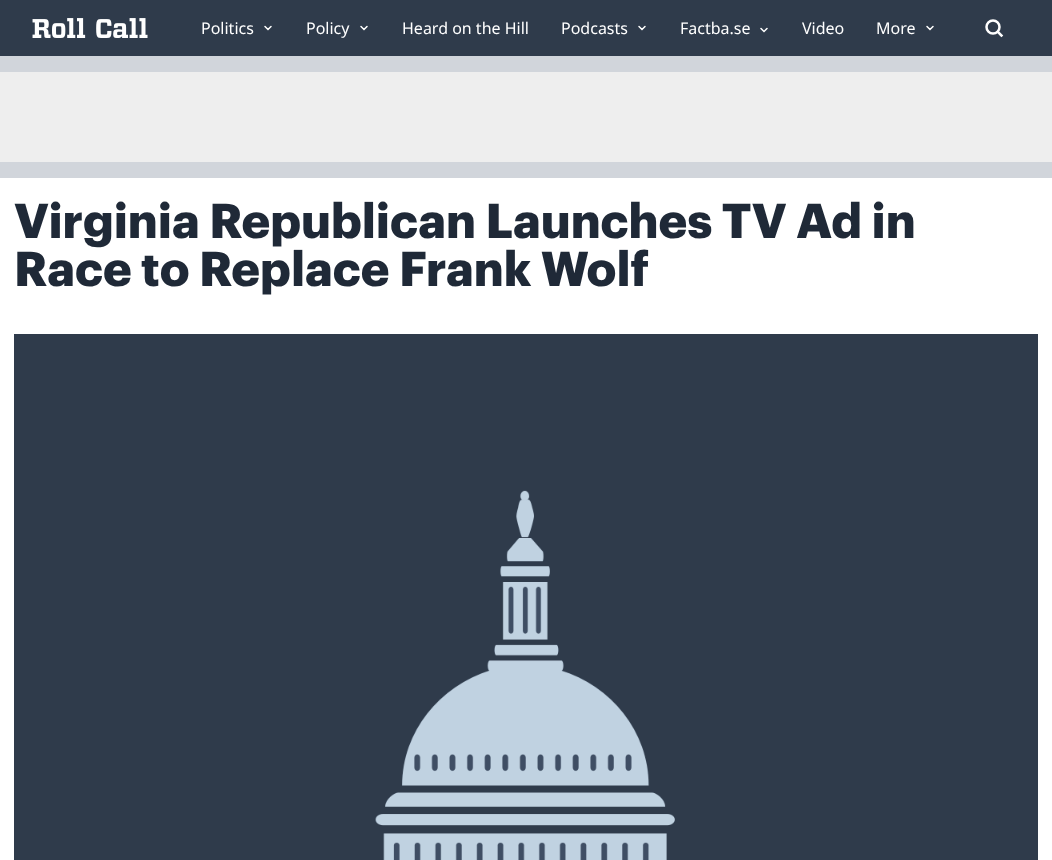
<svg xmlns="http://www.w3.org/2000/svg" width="1052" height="860">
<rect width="100%" height="100%" fill="#fff"/>
<rect width="1052" height="56" fill="#2f3b4b"/>
<image x="32" y="18" width="116" height="20" href="media/1.png"/>
<text x="201" y="34" style="font-family:Noto Sans;font-size:16px;fill:#fff">Politics</text>
<path d="M265 26.5l3 3l3-3" fill="none" stroke="#fff" stroke-width="1.5" stroke-linecap="round"/>
<text x="306" y="34" style="font-family:Noto Sans;font-size:16px;fill:#fff">Policy</text>
<path d="M361 26.5l3 3l3-3" fill="none" stroke="#fff" stroke-width="1.5" stroke-linecap="round"/>
<text x="402" y="34" style="font-family:Noto Sans;font-size:16px;fill:#fff">Heard on the Hill</text>
<text x="561" y="34" style="font-family:Noto Sans;font-size:16px;fill:#fff">Podcasts</text>
<path d="M639 26.5l3 3l3-3" fill="none" stroke="#fff" stroke-width="1.5" stroke-linecap="round"/>
<text x="680" y="34" style="font-family:Noto Sans;font-size:16px;fill:#fff">Factba.se</text>
<path d="M761 28.5l3 3l3-3" fill="none" stroke="#fff" stroke-width="1.5" stroke-linecap="round"/>
<text x="802" y="34" style="font-family:Noto Sans;font-size:16px;fill:#fff">Video</text>
<text x="876" y="34" style="font-family:Noto Sans;font-size:16px;fill:#fff">More</text>
<path d="M927 26.5l3 3l3-3" fill="none" stroke="#fff" stroke-width="1.5" stroke-linecap="round"/>
<circle cx="993" cy="27" r="6.5" fill="none" stroke="#fff" stroke-width="2.5"/>
<path d="M1001.5 35.5l-3.5-3.5" fill="none" stroke="#fff" stroke-width="2.5" stroke-linecap="square"/>
<rect y="56" width="1052" height="122" fill="#d1d5db"/>
<rect y="72" width="1052" height="90" fill="#eee"/>
<text x="14" y="238" style="font-family:Graphik;font-size:48px;font-weight:bold;fill:#1f2937">Virginia Republican Launches TV Ad in</text>
<text x="14" y="286" style="font-family:Graphik;font-size:48px;font-weight:bold;fill:#1f2937">Race to Replace Frank Wolf</text>
<image x="14" y="334" width="1024" height="526" href="media/2.png"/>
</svg>
